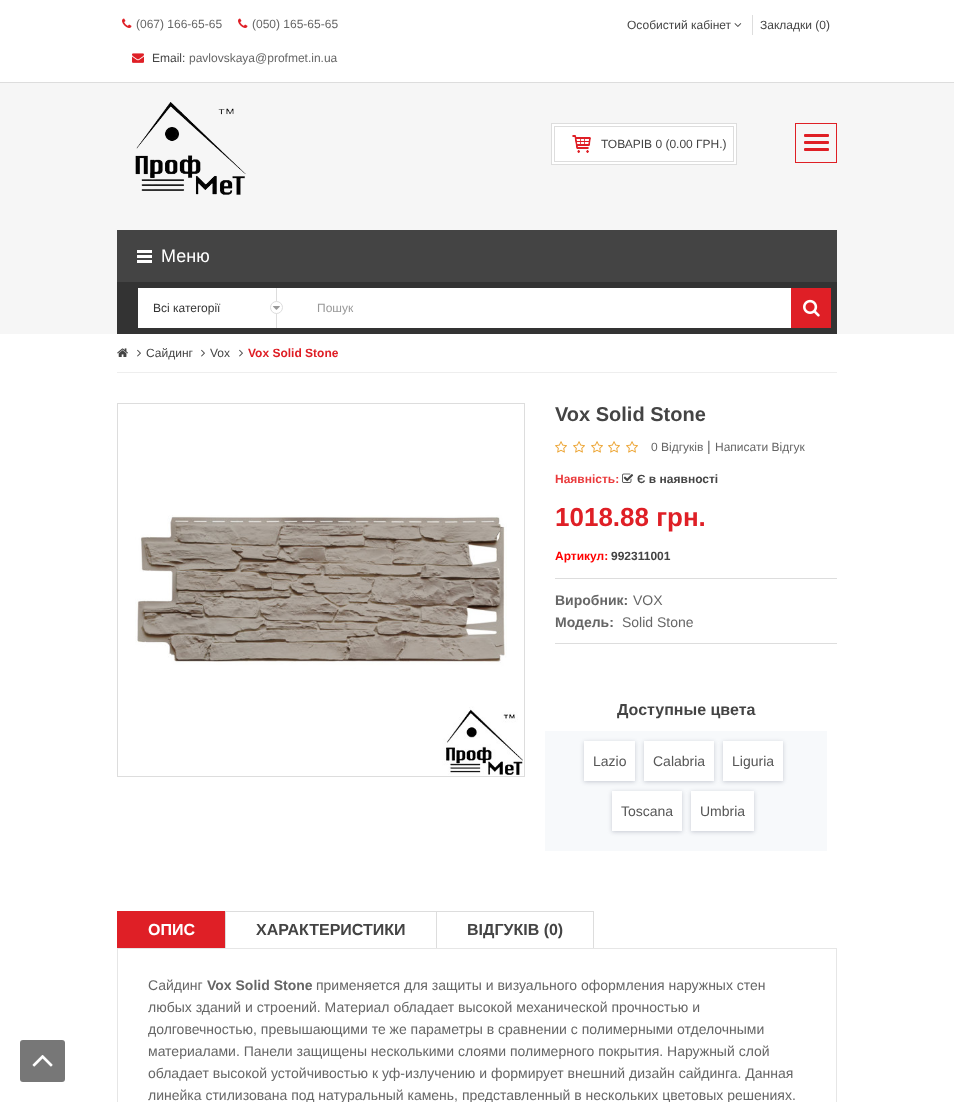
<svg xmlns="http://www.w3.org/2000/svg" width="954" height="1102">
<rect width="100%" height="100%" fill="#fff"/>
<rect y="82" width="954" height="1" fill="#ddd"/>
<image x="122" y="18" width="10" height="10" href="media/1.png"/>
<text x="136" y="28" style="font-family:Liberation Sans;font-size:12px;fill:#666">(067) 166-65-65</text>
<image x="238" y="18" width="10" height="10" href="media/1.png"/>
<text x="252" y="28" style="font-family:Liberation Sans;font-size:12px;fill:#666">(050) 165-65-65</text>
<image x="132" y="53" width="12" height="10" href="media/2.png"/>
<text x="152" y="62" style="font-family:Liberation Sans;font-size:12px;fill:#444">Email:</text>
<text x="189" y="62" style="font-family:Liberation Sans;font-size:12px;fill:#666">pavlovskaya@profmet.in.ua</text>
<text x="627" y="29" style="font-family:Liberation Sans;font-size:12px;fill:#444">Особистий кабінет</text>
<image x="734" y="23" width="8" height="4" href="media/3.png"/>
<rect x="752" y="15" width="1" height="20" fill="#ddd"/>
<text x="760" y="29" style="font-family:Liberation Sans;font-size:12px;fill:#444">Закладки (0)</text>
<rect y="83" width="954" height="251" fill="#f6f6f6"/>
<image x="135" y="102" width="111" height="93" href="media/4.png"/>
<rect x="551.5" y="123.5" width="185" height="41" fill="#fff" stroke="#ddd"/>
<rect x="554.5" y="126.5" width="179" height="35" fill="none" stroke="#ddd"/>
<image x="572" y="135" width="19" height="18" href="media/5.png"/>
<text x="601" y="148" style="font-family:Liberation Sans;font-size:12px;fill:#444">ТОВАРІВ 0 (0.00 ГРН.)</text>
<rect x="795.5" y="123.5" width="41" height="39" fill="none" stroke="#df1f25"/>
<rect x="804" y="134" width="25" height="3" rx="1" fill="#df1f25"/>
<rect x="804" y="141" width="25" height="3" rx="1" fill="#df1f25"/>
<rect x="804" y="148" width="25" height="3" rx="1" fill="#df1f25"/>
<rect x="117" y="230" width="720" height="52" fill="#444"/>
<rect x="137" y="250" width="15" height="3" fill="#fff"/>
<rect x="137" y="255" width="15" height="3" fill="#fff"/>
<rect x="137" y="260" width="15" height="3" fill="#fff"/>
<text x="161" y="262" style="font-family:Liberation Sans;font-size:18px;fill:#fff">Меню</text>
<rect x="117" y="282" width="720" height="52" fill="#333"/>
<rect x="138" y="288" width="138" height="40" fill="#fff"/>
<rect x="276" y="288" width="1" height="40" fill="#ddd"/>
<text x="153" y="312" style="font-family:Liberation Sans;font-size:12px;fill:#333">Всі категорії</text>
<rect x="277" y="288" width="514" height="40" fill="#fff"/>
<circle cx="276.5" cy="307.5" r="6" fill="#fff" stroke="#ddd"/>
<image x="273" y="306" width="7" height="4" href="media/6.png"/>
<text x="317" y="312" style="font-family:Liberation Sans;font-size:12px;fill:#999">Пошук</text>
<rect x="791" y="288" width="40" height="40" fill="#df1f26"/>
<image x="803" y="299" width="17" height="18" href="media/7.png"/>
<rect x="117" y="372" width="720" height="1" fill="#eee"/>
<image x="117" y="348" width="11" height="9" href="media/8.png"/>
<image x="137" y="349" width="4" height="8" href="media/9.png"/>
<text x="146" y="357" style="font-family:Liberation Sans;font-size:12px;fill:#444">Сайдинг</text>
<image x="201" y="349" width="4" height="8" href="media/9.png"/>
<text x="210" y="357" style="font-family:Liberation Sans;font-size:12px;fill:#444">Vox</text>
<image x="239" y="349" width="4" height="8" href="media/9.png"/>
<text x="248" y="357" style="font-family:Liberation Sans;font-size:12px;font-weight:bold;fill:#df1f26">Vox Solid Stone</text>
<rect x="20" y="1040" width="45" height="42" rx="3" fill="#777"/>
<image x="32" y="1055" width="21" height="12" href="media/10.png"/>
<rect x="117.5" y="403.5" width="407" height="373" fill="none" stroke="#ddd"/>
<image x="135" y="515" width="388" height="260" href="media/11.png"/>
<text x="555" y="421" style="font-family:Liberation Sans;font-size:20px;font-weight:bold;fill:#444">Vox Solid Stone</text>
<image x="555" y="441" width="12" height="12" href="media/12.png"/>
<image x="573" y="441" width="12" height="12" href="media/12.png"/>
<image x="591" y="441" width="12" height="12" href="media/12.png"/>
<image x="608" y="441" width="12" height="12" href="media/12.png"/>
<image x="626" y="441" width="12" height="12" href="media/12.png"/>
<text x="651" y="451" style="font-family:Liberation Sans;font-size:12px;fill:#666">0 Відгуків</text>
<text x="707" y="451" style="font-family:Liberation Sans;font-size:14px;fill:#666">|</text>
<text x="715" y="451" style="font-family:Liberation Sans;font-size:12px;fill:#666">Написати Відгук</text>
<text x="555" y="483" style="font-family:Liberation Sans;font-size:12px;font-weight:bold;fill:#ea3a3c">Наявність:</text>
<image x="622" y="473" width="12" height="10" href="media/13.png"/>
<text x="637" y="483" style="font-family:Liberation Sans;font-size:12px;font-weight:bold;fill:#444">Є в наявності</text>
<text x="555" y="526" style="font-family:Liberation Sans;font-size:26px;font-weight:bold;fill:#df1f26">1018.88 грн.</text>
<text x="555" y="560" style="font-family:Liberation Sans;font-size:12px;font-weight:bold;fill:#f00">Артикул:</text>
<text x="611" y="560" style="font-family:Liberation Sans;font-size:12px;font-weight:bold;fill:#444">992311001</text>
<rect x="555" y="578" width="282" height="1" fill="#ddd"/>
<rect x="555" y="643" width="282" height="1" fill="#ddd"/>
<text x="555" y="605" style="font-family:Liberation Sans;font-size:14px;font-weight:bold;fill:#666">Виробник:</text>
<text x="633" y="605" style="font-family:Liberation Sans;font-size:14px;fill:#666">VOX</text>
<text x="555" y="627" style="font-family:Liberation Sans;font-size:14px;font-weight:bold;fill:#666">Модель:</text>
<text x="622" y="627" style="font-family:Liberation Sans;font-size:14px;fill:#666">Solid Stone</text>
<text x="617" y="715" style="font-family:Liberation Sans;font-size:16px;font-weight:bold;fill:#444">Доступные цвета</text>
<rect x="545" y="731" width="282" height="120" fill="#f7f9fb"/>
<rect x="584" y="742" width="51" height="40" fill="#a8acb99e" filter="blur(2px)"/>
<rect x="584" y="741" width="51" height="40" fill="#fff"/>
<text x="593" y="766" style="font-family:Liberation Sans;font-size:14px;fill:#565656">Lazio</text>
<rect x="644" y="742" width="70" height="40" fill="#a8acb99e" filter="blur(2px)"/>
<rect x="644" y="741" width="70" height="40" fill="#fff"/>
<text x="653" y="766" style="font-family:Liberation Sans;font-size:14px;fill:#565656">Calabria</text>
<rect x="723" y="742" width="60" height="40" fill="#a8acb99e" filter="blur(2px)"/>
<rect x="723" y="741" width="60" height="40" fill="#fff"/>
<text x="732" y="766" style="font-family:Liberation Sans;font-size:14px;fill:#565656">Liguria</text>
<rect x="612" y="792" width="70" height="40" fill="#a8acb99e" filter="blur(2px)"/>
<rect x="612" y="791" width="70" height="40" fill="#fff"/>
<text x="621" y="816" style="font-family:Liberation Sans;font-size:14px;fill:#565656">Toscana</text>
<rect x="691" y="792" width="63" height="40" fill="#a8acb99e" filter="blur(2px)"/>
<rect x="691" y="791" width="63" height="40" fill="#fff"/>
<text x="700" y="816" style="font-family:Liberation Sans;font-size:14px;fill:#565656">Umbria</text>
<rect x="117.5" y="911.5" width="108" height="37" fill="none" stroke="#df1f26"/>
<rect x="118" y="912" width="107" height="36" fill="#df1f26"/>
<text x="148" y="935" style="font-family:Liberation Sans;font-size:16px;font-weight:bold;fill:#fff">ОПИС</text>
<rect x="225.5" y="911.5" width="211" height="37" fill="none" stroke="#ddd"/>
<text x="256" y="935" style="font-family:Liberation Sans;font-size:16px;font-weight:bold;fill:#444">ХАРАКТЕРИСТИКИ</text>
<rect x="436.5" y="911.5" width="157" height="37" fill="none" stroke="#ddd"/>
<text x="467" y="935" style="font-family:Liberation Sans;font-size:16px;font-weight:bold;fill:#444">ВІДГУКІВ (0)</text>
<rect x="117.5" y="948.5" width="719" height="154" fill="none" stroke="#e6e6e6"/>
<text x="148" y="990" style="font-family:Liberation Sans;font-size:14px;fill:#666">Сайдинг</text>
<text x="207" y="990" style="font-family:Liberation Sans;font-size:14px;font-weight:bold;fill:#666">Vox Solid Stone</text>
<text x="316" y="990" style="font-family:Liberation Sans;font-size:14px;fill:#666">применяется для защиты и визуального оформления наружных стен</text>
<text x="148" y="1012" style="font-family:Liberation Sans;font-size:14px;fill:#666">любых зданий и строений. Материал обладает высокой механической прочностью и</text>
<text x="148" y="1034" style="font-family:Liberation Sans;font-size:14px;fill:#666">долговечностью, превышающими те же параметры в сравнении с полимерными отделочными</text>
<text x="148" y="1056" style="font-family:Liberation Sans;font-size:14px;fill:#666">материалами. Панели защищены несколькими слоями полимерного покрытия. Наружный слой</text>
<text x="148" y="1078" style="font-family:Liberation Sans;font-size:14px;fill:#666">обладает высокой устойчивостью к уф-излучению и формирует внешний дизайн сайдинга. Данная</text>
<text x="148" y="1100" style="font-family:Liberation Sans;font-size:14px;fill:#666">линейка стилизована под натуральный камень, представленный в нескольких цветовых решениях.</text>
</svg>
